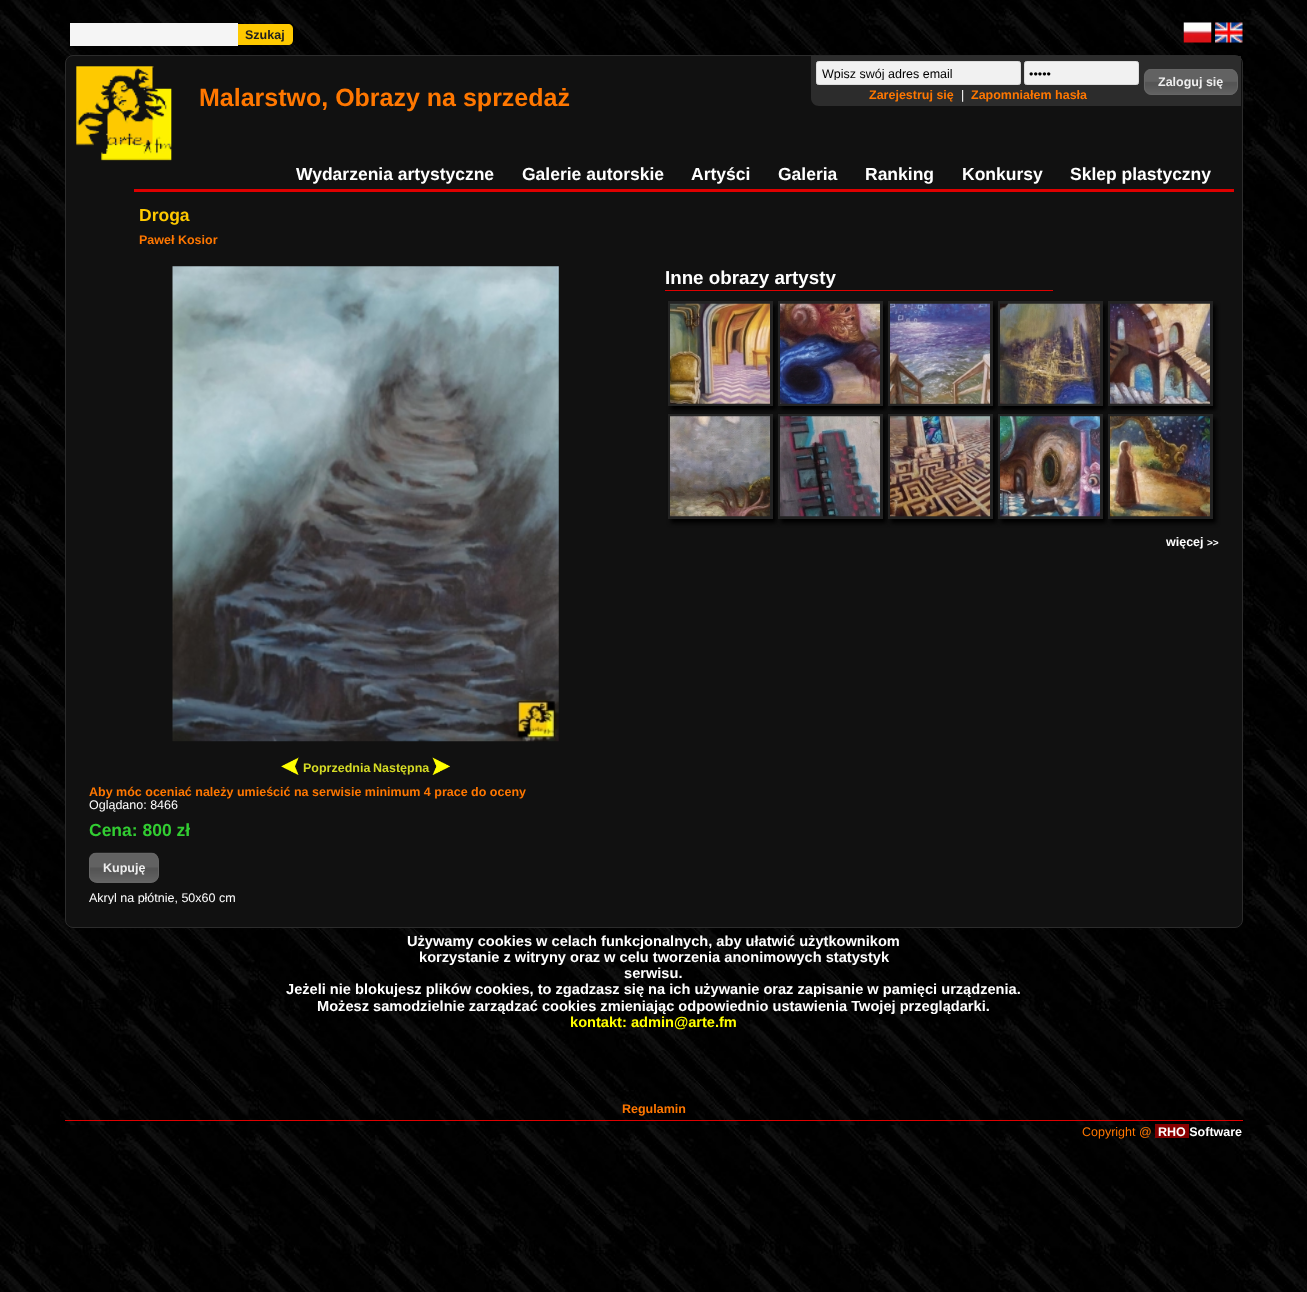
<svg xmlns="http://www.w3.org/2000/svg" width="1307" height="1292">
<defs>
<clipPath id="clip1"><rect x="821" y="66" width="195" height="14"/></clipPath>
<clipPath id="clip2"><rect x="89" y="191" width="1130" height="713"/></clipPath>
</defs>
<rect width="100%" height="100%" fill="#fff"/>
<image x="0" y="0" width="1307" height="1292" href="media/1.png"/>
<rect x="70" y="23" width="168" height="23" fill="#f5f5f5"/>
<path d="M238 24h50c3 0 5 2 5 5v11c0 3-2 5-5 5h-50z" fill="#fec900"/>
<text x="245" y="39" style="font-family:Liberation Sans;font-size:12.5px;font-weight:bold;fill:#1f1f1f">Szukaj</text>
<image x="1183" y="22" width="29" height="21" href="media/2.png"/>
<image x="1215" y="22" width="28" height="21" href="media/3.png"/>
<rect x="65.5" y="55.5" width="1177" height="872" rx="7.5" fill="#111" stroke="#2c2c2c"/>
<image x="76" y="66" width="96" height="95" href="media/4.png"/>
<text x="199" y="106" style="font-family:Liberation Sans;font-size:25px;font-weight:bold;fill:#f70">Malarstwo, Obrazy na sprzedaż</text>
<path d="M811 56h430v50h-422c-4.5 0-8-3.5-8-8z" fill="#2c2c2c"/>
<rect x="816.5" y="61.5" width="204" height="23" rx="2" fill="#f1f1f1" stroke="#dcdcdc"/>
<g clip-path="url(#clip1)">
<text x="822" y="78" style="font-family:Liberation Sans;font-size:12.5px;fill:#000">Wpisz swój adres email</text>
</g>
<rect x="1024.5" y="61.5" width="114" height="23" rx="2" fill="#f1f1f1" stroke="#dcdcdc"/>
<text x="1029" y="78" style="font-family:Liberation Sans;font-size:12.5px;fill:#000">•••••</text>
<text x="869" y="99" style="font-family:Liberation Sans;font-size:12.5px;font-weight:bold;fill:#f70">Zarejestruj się</text>
<text x="961" y="99" style="font-family:Liberation Sans;font-size:12.5px;fill:#fff">|</text>
<text x="971" y="99" style="font-family:Liberation Sans;font-size:12.5px;font-weight:bold;fill:#f70">Zapomniałem hasła</text>
<image x="1143" y="69" width="94" height="26" href="media/5.png"/>
<rect x="1144.5" y="69.5" width="93" height="25" rx="7.5" fill="none" stroke="#666"/>
<text x="1158" y="86" style="font-family:Liberation Sans;font-size:12.5px;font-weight:bold;fill:#eee">Zaloguj się</text>
<rect x="134" y="189" width="1100" height="3" fill="#df0000"/>
<text x="296" y="180" style="font-family:Liberation Sans;font-size:17.5px;font-weight:bold;fill:#fff">Wydarzenia artystyczne</text>
<text x="522" y="180" style="font-family:Liberation Sans;font-size:17.5px;font-weight:bold;fill:#fff">Galerie autorskie</text>
<text x="691" y="180" style="font-family:Liberation Sans;font-size:17.5px;font-weight:bold;fill:#fff">Artyści</text>
<text x="778" y="180" style="font-family:Liberation Sans;font-size:17.5px;font-weight:bold;fill:#fff">Galeria</text>
<text x="865" y="180" style="font-family:Liberation Sans;font-size:17.5px;font-weight:bold;fill:#fff">Ranking</text>
<text x="962" y="180" style="font-family:Liberation Sans;font-size:17.5px;font-weight:bold;fill:#fff">Konkursy</text>
<text x="1070" y="180" style="font-family:Liberation Sans;font-size:17.5px;font-weight:bold;fill:#fff">Sklep plastyczny</text>
<text x="139" y="221" style="font-family:Liberation Sans;font-size:17.5px;font-weight:bold;fill:#fec900">Droga</text>
<text x="139" y="244" style="font-family:Liberation Sans;font-size:12.5px;font-weight:bold;fill:#f70">Paweł Kosior</text>
<rect x="665" y="290" width="388" height="1" fill="#df0000"/>
<text x="665" y="284" style="font-family:Liberation Sans;font-size:18.75px;font-weight:bold;fill:#fff">Inne obrazy artysty</text>
<rect x="671" y="305" width="105" height="105" fill="#000" filter="blur(2px)"/>
<rect x="669.5" y="302.5" width="102" height="102" fill="none" stroke="#232323" stroke-width="3"/>
<image x="670" y="303" width="100" height="101" href="media/6.png"/>
<rect x="781" y="305" width="105" height="105" fill="#000" filter="blur(2px)"/>
<rect x="779.5" y="302.5" width="102" height="102" fill="none" stroke="#232323" stroke-width="3"/>
<image x="780" y="303" width="100" height="101" href="media/7.png"/>
<rect x="891" y="305" width="105" height="105" fill="#000" filter="blur(2px)"/>
<rect x="889.5" y="302.5" width="102" height="102" fill="none" stroke="#232323" stroke-width="3"/>
<image x="890" y="303" width="100" height="101" href="media/8.png"/>
<rect x="1001" y="305" width="105" height="105" fill="#000" filter="blur(2px)"/>
<rect x="999.5" y="302.5" width="102" height="102" fill="none" stroke="#232323" stroke-width="3"/>
<image x="1000" y="303" width="100" height="101" href="media/9.png"/>
<rect x="1111" y="305" width="105" height="105" fill="#000" filter="blur(2px)"/>
<rect x="1109.5" y="302.5" width="102" height="102" fill="none" stroke="#232323" stroke-width="3"/>
<image x="1110" y="303" width="100" height="101" href="media/10.png"/>
<rect x="671" y="418" width="105" height="105" fill="#000" filter="blur(2px)"/>
<rect x="669.5" y="415.5" width="102" height="102" fill="none" stroke="#232323" stroke-width="3"/>
<image x="670" y="416" width="100" height="101" href="media/11.png"/>
<rect x="781" y="418" width="105" height="105" fill="#000" filter="blur(2px)"/>
<rect x="779.5" y="415.5" width="102" height="102" fill="none" stroke="#232323" stroke-width="3"/>
<image x="780" y="416" width="100" height="101" href="media/12.png"/>
<rect x="891" y="418" width="105" height="105" fill="#000" filter="blur(2px)"/>
<rect x="889.5" y="415.5" width="102" height="102" fill="none" stroke="#232323" stroke-width="3"/>
<image x="890" y="416" width="100" height="101" href="media/13.png"/>
<rect x="1001" y="418" width="105" height="105" fill="#000" filter="blur(2px)"/>
<rect x="999.5" y="415.5" width="102" height="102" fill="none" stroke="#232323" stroke-width="3"/>
<image x="1000" y="416" width="100" height="101" href="media/14.png"/>
<rect x="1111" y="418" width="105" height="105" fill="#000" filter="blur(2px)"/>
<rect x="1109.5" y="415.5" width="102" height="102" fill="none" stroke="#232323" stroke-width="3"/>
<image x="1110" y="416" width="100" height="101" href="media/15.png"/>
<text x="1166" y="546" style="font-family:Liberation Sans;font-size:12.5px;font-weight:bold;fill:#fff">więcej</text>
<text x="1207" y="546" style="font-family:Liberation Sans;font-size:10px;font-weight:bold;fill:#fff">&gt;&gt;</text>
<image x="172" y="266" width="387" height="476" href="media/16.png"/>
<image x="281" y="757" width="18" height="18" href="media/17.png"/>
<text x="303" y="772" style="font-family:Liberation Sans;font-size:12.5px;font-weight:bold;fill:#d5db25">Poprzednia</text>
<text x="373" y="772" style="font-family:Liberation Sans;font-size:12.5px;font-weight:bold;fill:#d5db25">Następna</text>
<image x="432" y="757" width="18" height="18" href="media/18.png"/>
<text x="89" y="796" style="font-family:Liberation Sans;font-size:12.5px;font-weight:bold;fill:#f70">Aby móc oceniać należy umieścić na serwisie minimum 4 prace do oceny</text>
<text x="89" y="809" style="font-family:Liberation Sans;font-size:12.5px;fill:#fff">Oglądano: 8466</text>
<text x="89" y="836" style="font-family:Liberation Sans;font-size:17.5px;font-weight:bold;fill:#32cd32">Cena: 800 zł</text>
<image x="89" y="852" width="70" height="31" href="media/19.png"/>
<rect x="89.5" y="853.5" width="69" height="29" rx="7.5" fill="none" stroke="#666"/>
<text x="103" y="872" style="font-family:Liberation Sans;font-size:12.5px;font-weight:bold;fill:#eee">Kupuję</text>
<g clip-path="url(#clip2)">
<text x="89" y="902" style="font-family:Liberation Sans;font-size:12.5px;fill:#fff">Akryl na płótnie, 50x60 cm</text>
</g>
<text x="407" y="946" style="font-family:Liberation Sans;font-size:14.62px;font-weight:bold;fill:#fff">Używamy cookies w celach funkcjonalnych, aby ułatwić użytkownikom</text>
<text x="419" y="962" style="font-family:Liberation Sans;font-size:14.62px;font-weight:bold;fill:#fff">korzystanie z witryny oraz w celu tworzenia anonimowych statystyk</text>
<text x="624" y="978" style="font-family:Liberation Sans;font-size:14.62px;font-weight:bold;fill:#fff">serwisu.</text>
<text x="286" y="994" style="font-family:Liberation Sans;font-size:14.62px;font-weight:bold;fill:#fff">Jeżeli nie blokujesz plików cookies, to zgadzasz się na ich używanie oraz zapisanie w pamięci urządzenia.</text>
<text x="317" y="1011" style="font-family:Liberation Sans;font-size:14.62px;font-weight:bold;fill:#fff">Możesz samodzielnie zarządzać cookies zmieniając odpowiednio ustawienia Twojej przeglądarki.</text>
<text x="570" y="1027" style="font-family:Liberation Sans;font-size:14.62px;font-weight:bold;fill:#ff0">kontakt: admin@arte.fm</text>
<text x="622" y="1113" style="font-family:Liberation Sans;font-size:12.5px;font-weight:bold;fill:#f70">Regulamin</text>
<rect x="65" y="1120" width="1178" height="1" fill="#df0000"/>
<text x="1082" y="1136" style="font-family:Liberation Sans;font-size:12.5px;fill:#f70">Copyright @</text>
<rect x="1155" y="1124" width="34" height="14" fill="#800"/>
<text x="1158" y="1136" style="font-family:Liberation Sans;font-size:12.5px;font-weight:bold;fill:#fff">RHO Software</text>
</svg>
